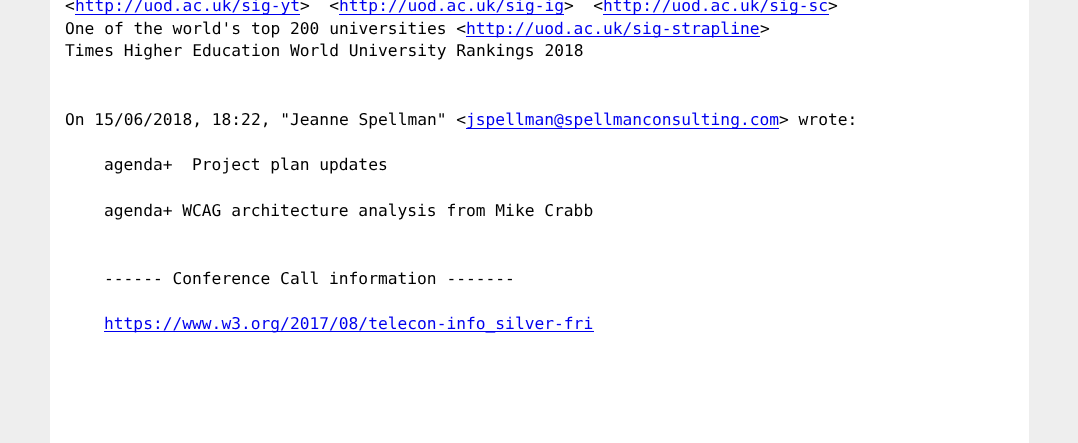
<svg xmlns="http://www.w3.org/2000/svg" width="1078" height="443">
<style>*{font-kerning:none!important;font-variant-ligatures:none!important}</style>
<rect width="100%" height="100%" fill="#eee"/>
<rect x="50" width="979" height="443" fill="#fff"/>
<text x="65" y="11" style="font-family:DejaVu Sans Mono;font-size:16.25px;fill:#000">&lt;</text>
<rect x="75" y="14" width="225" height="1" fill="#00e"/>
<text x="75" y="11" style="font-family:DejaVu Sans Mono;font-size:16.25px;fill:#00e">http://uod.ac.uk/sig-yt</text>
<text x="300" y="11" style="font-family:DejaVu Sans Mono;font-size:16.25px;fill:#000" xml:space="preserve">&gt;  &lt;</text>
<rect x="339" y="14" width="225" height="1" fill="#00e"/>
<text x="339" y="11" style="font-family:DejaVu Sans Mono;font-size:16.25px;fill:#00e">http://uod.ac.uk/sig-ig</text>
<text x="564" y="11" style="font-family:DejaVu Sans Mono;font-size:16.25px;fill:#000" xml:space="preserve">&gt;  &lt;</text>
<rect x="603" y="14" width="226" height="1" fill="#00e"/>
<text x="603" y="11" style="font-family:DejaVu Sans Mono;font-size:16.25px;fill:#00e">http://uod.ac.uk/sig-sc</text>
<text x="828" y="11" style="font-family:DejaVu Sans Mono;font-size:16.25px;fill:#000">&gt;</text>
<text x="65" y="34" style="font-family:DejaVu Sans Mono;font-size:16.25px;fill:#000">One of the world's top 200 universities &lt;</text>
<rect x="466" y="36" width="294" height="1" fill="#00e"/>
<text x="466" y="34" style="font-family:DejaVu Sans Mono;font-size:16.25px;fill:#00e">http://uod.ac.uk/sig-strapline</text>
<text x="760" y="34" style="font-family:DejaVu Sans Mono;font-size:16.25px;fill:#000">&gt;</text>
<text x="65" y="56" style="font-family:DejaVu Sans Mono;font-size:16.25px;fill:#000">Times Higher Education World University Rankings 2018</text>
<text x="65" y="125" style="font-family:DejaVu Sans Mono;font-size:16.25px;fill:#000">On 15/06/2018, 18:22, "Jeanne Spellman" &lt;</text>
<rect x="466" y="128" width="313" height="1" fill="#00e"/>
<text x="466" y="125" style="font-family:DejaVu Sans Mono;font-size:16.25px;fill:#00e">jspellman@spellmanconsulting.com</text>
<text x="779" y="125" style="font-family:DejaVu Sans Mono;font-size:16.25px;fill:#000">&gt; wrote:</text>
<text x="104" y="170" style="font-family:DejaVu Sans Mono;font-size:16.25px;fill:#000" xml:space="preserve">agenda+  Project plan updates</text>
<text x="104" y="216" style="font-family:DejaVu Sans Mono;font-size:16.25px;fill:#000">agenda+ WCAG architecture analysis from Mike Crabb</text>
<text x="104" y="284" style="font-family:DejaVu Sans Mono;font-size:16.25px;fill:#000">------ Conference Call information -------</text>
<rect x="104" y="331" width="490" height="1" fill="#00e"/>
<text x="104" y="329" style="font-family:DejaVu Sans Mono;font-size:16.25px;fill:#00e">https://www.w3.org/2017/08/telecon-info_silver-fri</text>
</svg>
